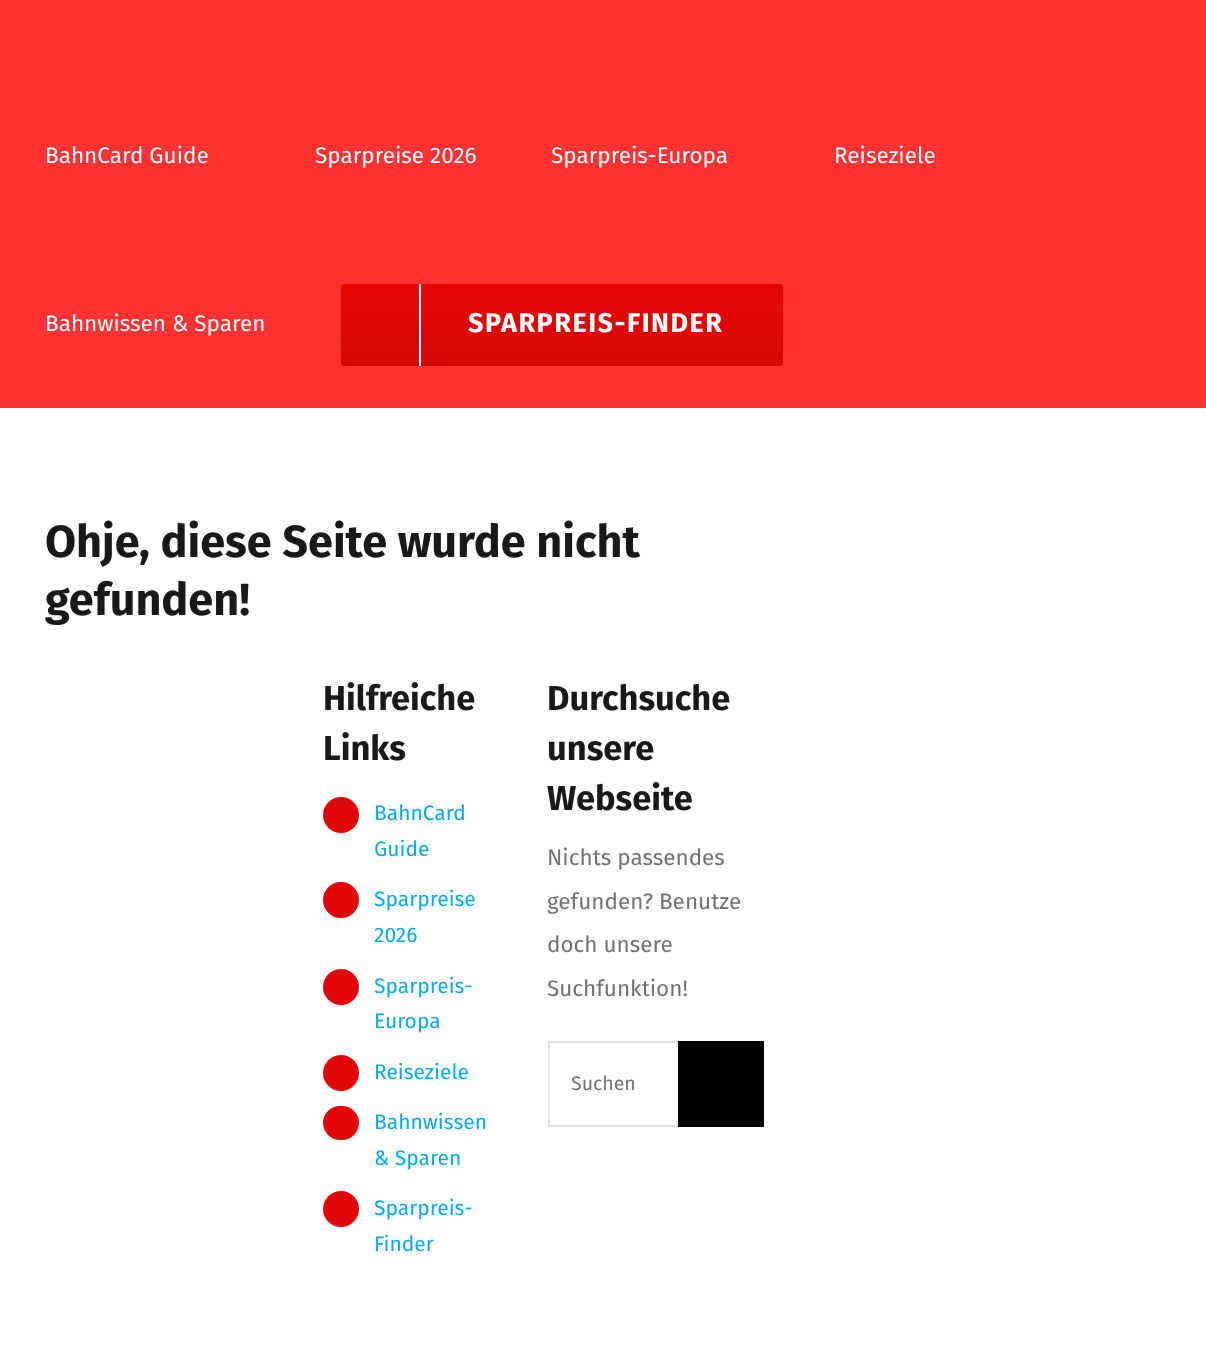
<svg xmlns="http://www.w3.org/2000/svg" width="1206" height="1365">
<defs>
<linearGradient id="g1" gradientUnits="userSpaceOnUse" x1="562" y1="283" x2="562" y2="366"><stop offset="0" stop-color="#e80707"/><stop offset="1" stop-color="#d60707"/></linearGradient>
</defs>
<rect width="100%" height="100%" fill="#fff"/>
<rect width="1206" height="408" fill="#ff3233"/>
<text x="45" y="163" style="font-family:Fira Sans;font-size:22.5px;fill:#fff">BahnCard Guide</text>
<text x="315" y="163" style="font-family:Fira Sans;font-size:22.5px;fill:#fff">Sparpreise 2026</text>
<text x="551" y="163" style="font-family:Fira Sans;font-size:22.5px;fill:#fff">Sparpreis-Europa</text>
<text x="834" y="163" style="font-family:Fira Sans;font-size:22.5px;fill:#fff">Reiseziele</text>
<text x="45" y="331" style="font-family:Fira Sans;font-size:22.5px;fill:#fff">Bahnwissen &amp; Sparen</text>
<rect x="341" y="284" width="442" height="82" rx="3" fill="url(#g1)"/>
<rect x="419" y="284" width="2" height="82" fill="#fff"/>
<text x="468" y="332" style="font-family:Fira Sans;font-size:27px;font-weight:bold;letter-spacing:1.5px;fill:#fff">SPARPREIS-FINDER</text>
<text x="45" y="557" style="font-family:Fira Sans;font-size:45px;font-weight:bold;fill:#191919">Ohje, diese Seite wurde nicht</text>
<text x="45" y="615" style="font-family:Fira Sans;font-size:45px;font-weight:bold;fill:#191919">gefunden!</text>
<text x="323" y="710" style="font-family:Fira Sans;font-size:34.5px;font-weight:bold;fill:#191919">Hilfreiche</text>
<text x="323" y="760" style="font-family:Fira Sans;font-size:34.5px;font-weight:bold;fill:#191919">Links</text>
<circle cx="341" cy="815" r="18" fill="#e10707"/>
<text x="374" y="820" style="font-family:Fira Sans;font-size:21px;fill:#03a9f4">BahnCard</text>
<text x="374" y="856" style="font-family:Fira Sans;font-size:21px;fill:#03a9f4">Guide</text>
<circle cx="341" cy="900" r="18" fill="#e10707"/>
<text x="374" y="906" style="font-family:Fira Sans;font-size:21px;fill:#03a9f4">Sparpreise</text>
<text x="374" y="942" style="font-family:Fira Sans;font-size:21px;fill:#03a9f4">2026</text>
<circle cx="341" cy="987" r="18" fill="#e10707"/>
<text x="374" y="993" style="font-family:Fira Sans;font-size:21px;fill:#03a9f4">Sparpreis-</text>
<text x="374" y="1028" style="font-family:Fira Sans;font-size:21px;fill:#03a9f4">Europa</text>
<circle cx="341" cy="1073" r="18" fill="#e10707"/>
<text x="374" y="1079" style="font-family:Fira Sans;font-size:21px;fill:#03a9f4">Reiseziele</text>
<rect x="323" y="1106" width="36" height="34" rx="17" fill="#e10707"/>
<text x="374" y="1129" style="font-family:Fira Sans;font-size:21px;fill:#03a9f4">Bahnwissen</text>
<text x="374" y="1165" style="font-family:Fira Sans;font-size:21px;fill:#03a9f4">&amp; Sparen</text>
<circle cx="341" cy="1209" r="18" fill="#e10707"/>
<text x="374" y="1215" style="font-family:Fira Sans;font-size:21px;fill:#03a9f4">Sparpreis-</text>
<text x="374" y="1251" style="font-family:Fira Sans;font-size:21px;fill:#03a9f4">Finder</text>
<text x="547" y="710" style="font-family:Fira Sans;font-size:34.5px;font-weight:bold;fill:#191919">Durchsuche</text>
<text x="547" y="760" style="font-family:Fira Sans;font-size:34.5px;font-weight:bold;fill:#191919">unsere</text>
<text x="547" y="810" style="font-family:Fira Sans;font-size:34.5px;font-weight:bold;fill:#191919">Webseite</text>
<text x="547" y="865" style="font-family:Fira Sans;font-size:22.5px;fill:#707070">Nichts passendes</text>
<text x="547" y="909" style="font-family:Fira Sans;font-size:22.5px;fill:#707070">gefunden? Benutze</text>
<text x="547" y="952" style="font-family:Fira Sans;font-size:22.5px;fill:#707070">doch unsere</text>
<text x="547" y="996" style="font-family:Fira Sans;font-size:22.5px;fill:#707070">Suchfunktion!</text>
<rect x="548" y="1041" width="130" height="2" fill="#e2e2e2"/>
<rect x="548" y="1125" width="130" height="2" fill="#e2e2e2"/>
<rect x="548" y="1041" width="2" height="86" fill="#e2e2e2"/>
<text x="571" y="1090" style="font-family:Fira Sans;font-size:19.5px;fill:#707070">Suchen</text>
<rect x="678" y="1041" width="86" height="86" fill="#000"/>
</svg>
